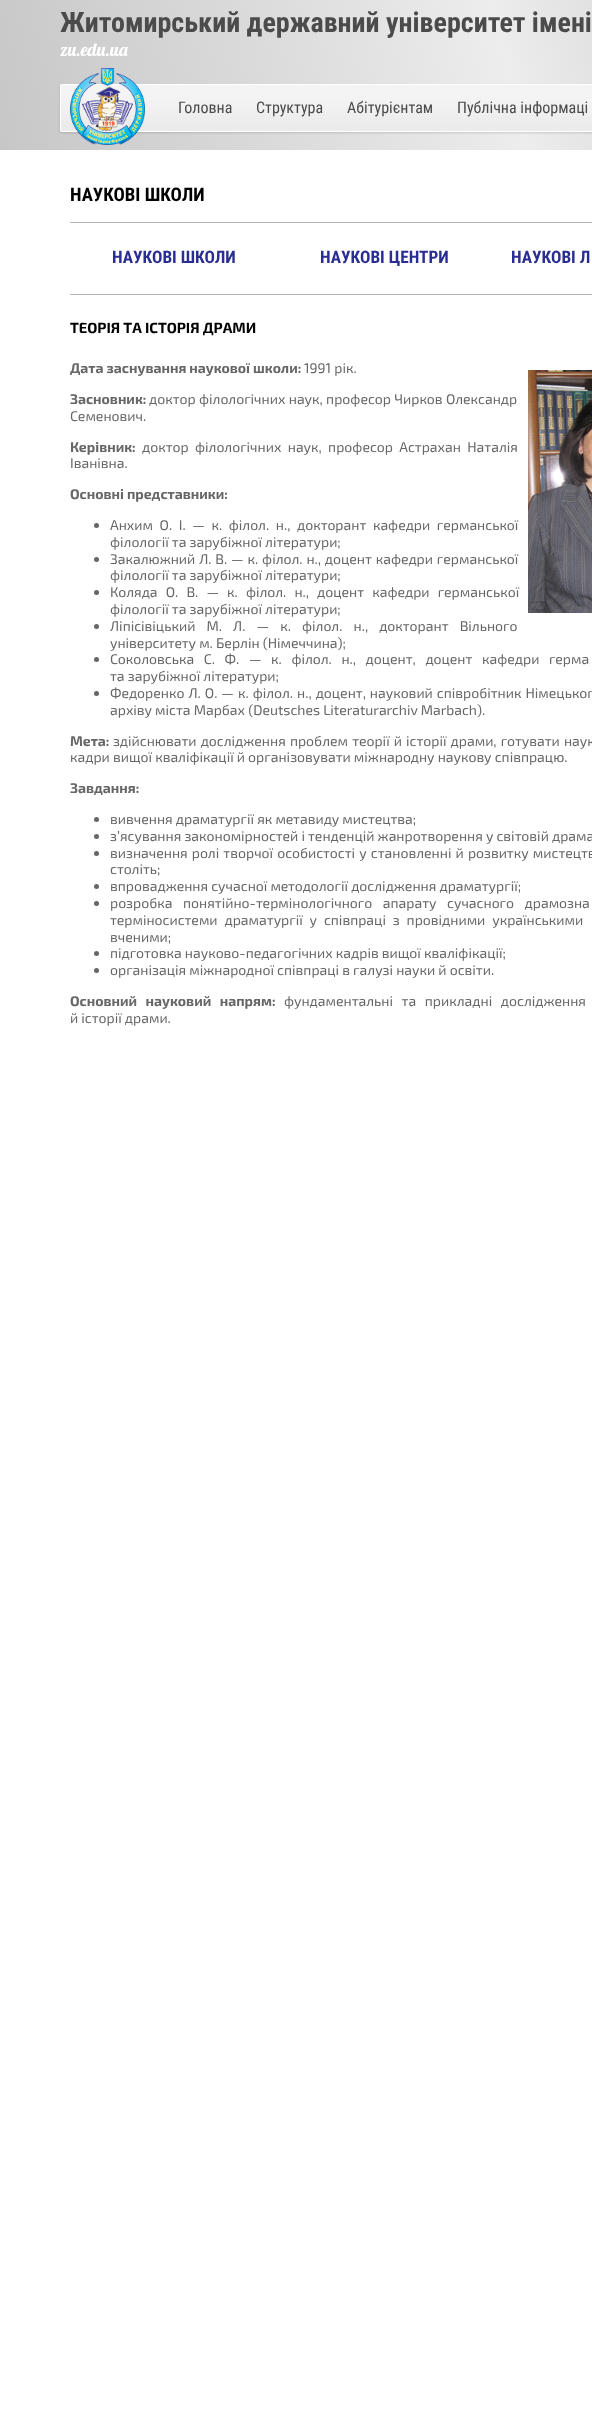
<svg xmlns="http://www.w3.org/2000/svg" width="592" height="2427">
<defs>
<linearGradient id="g1" gradientUnits="userSpaceOnUse" x1="11" y1="192" x2="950" y2="-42"><stop offset="0" stop-color="#c7c7c7"/><stop offset="0.4" stop-color="#e3e3e3"/><stop offset="0.53" stop-color="#ededed"/><stop offset="0.55" stop-color="#eaeaea"/><stop offset="1" stop-color="#bababa"/></linearGradient>
</defs>
<rect width="100%" height="100%" fill="#fff"/>
<rect width="592" height="150" fill="url(#g1)"/>
<text x="60" y="32" style="font-family:Roboto Condensed;font-size:28px;font-weight:bold;fill:#4b4b4b">Житомирський державний університет імені</text>
<text x="60" y="56" style="font-family:Lobster;font-size:18px;fill:#fff">zu.edu.ua</text>
<rect x="60" y="85" width="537" height="48" rx="2" fill="#00000026" filter="blur(1px)"/>
<image x="60" y="84" width="532" height="48" href="media/2.png"/>
<rect x="60.5" y="84.5" width="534" height="47" rx="1.5" fill="none" stroke="#fff"/>
<image x="70" y="68" width="75" height="77" href="media/1.png"/>
<text x="178" y="113" style="font-family:Roboto Condensed;font-size:16px;fill:#4b4b4b">Головна</text>
<text x="256" y="113" style="font-family:Roboto Condensed;font-size:16px;fill:#4b4b4b">Структура</text>
<text x="347" y="113" style="font-family:Roboto Condensed;font-size:16px;fill:#4b4b4b">Абітурієнтам</text>
<text x="457" y="113" style="font-family:Roboto Condensed;font-size:16px;fill:#4b4b4b">Публічна інформаці</text>
<text x="70" y="201" style="font-family:Roboto Condensed;font-size:18.75px;font-weight:bold;fill:#000">НАУКОВІ ШКОЛИ</text>
<rect x="70" y="222" width="522" height="1" fill="#b5b5b5"/>
<rect x="70" y="294" width="522" height="1" fill="#b5b5b5"/>
<text x="112" y="263" style="font-family:Roboto Condensed;font-size:17.25px;font-weight:bold;fill:#2a2e93">НАУКОВІ ШКОЛИ</text>
<text x="320" y="263" style="font-family:Roboto Condensed;font-size:17.25px;font-weight:bold;fill:#2a2e93">НАУКОВІ ЦЕНТРИ</text>
<text x="511" y="263" style="font-family:Roboto Condensed;font-size:17.25px;font-weight:bold;fill:#2a2e93">НАУКОВІ Л</text>
<text x="70" y="333" style="font-family:'Exo 2';font-size:14.7px;font-weight:bold;fill:#000">ТЕОРІЯ ТА ІСТОРІЯ ДРАМИ</text>
<text x="70" y="373" style="font-family:'Exo 2';font-size:14px;font-weight:bold;fill:#666">Дата заснування наукової школи:</text>
<text x="304" y="373" style="font-family:'Exo 2';font-size:14px;fill:#666">1991 рік.</text>
<image x="528" y="370" width="64" height="243" href="media/3.png"/>
<text x="70" y="404" style="font-family:'Exo 2';font-size:14px;font-weight:bold;fill:#666">Засновник:</text>
<text x="149" y="404" word-spacing="0.25" style="font-family:'Exo 2';font-size:14px;fill:#666">доктор філологічних наук, професор Чирков Олександр</text>
<text x="70" y="421" style="font-family:'Exo 2';font-size:14px;fill:#666">Семенович.</text>
<text x="70" y="452" style="font-family:'Exo 2';font-size:14px;font-weight:bold;fill:#666">Керівник:</text>
<text x="142" y="452" word-spacing="3.25" style="font-family:'Exo 2';font-size:14px;fill:#666">доктор філологічних наук, професор Астрахан Наталія</text>
<text x="70" y="468" style="font-family:'Exo 2';font-size:14px;fill:#666">Іванівна.</text>
<text x="70" y="499" style="font-family:'Exo 2';font-size:14px;font-weight:bold;fill:#666">Основні представники:</text>
<circle cx="96.5" cy="525.5" r="2.5" fill="#666"/>
<text x="110" y="530" word-spacing="3.5" style="font-family:'Exo 2';font-size:14px;fill:#666">Анхим О. І. — к. філол. н., докторант кафедри германської</text>
<text x="110" y="547" style="font-family:'Exo 2';font-size:14px;fill:#666">філології та зарубіжної літератури;</text>
<circle cx="96.5" cy="559.5" r="2.5" fill="#666"/>
<text x="110" y="564" word-spacing="0.75" style="font-family:'Exo 2';font-size:14px;fill:#666">Закалюжний Л. В. — к. філол. н., доцент кафедри германської</text>
<text x="110" y="580" style="font-family:'Exo 2';font-size:14px;fill:#666">філології та зарубіжної літератури;</text>
<circle cx="96.5" cy="592.5" r="2.5" fill="#666"/>
<text x="110" y="597" word-spacing="5" style="font-family:'Exo 2';font-size:14px;fill:#666">Коляда О. В. — к. філол. н., доцент кафедри германської</text>
<text x="110" y="614" style="font-family:'Exo 2';font-size:14px;fill:#666">філології та зарубіжної літератури;</text>
<circle cx="96.5" cy="626.5" r="2.5" fill="#666"/>
<text x="110" y="631" word-spacing="8" style="font-family:'Exo 2';font-size:14px;fill:#666">Ліпісівіцький М. Л. — к. філол. н., докторант Вільного</text>
<text x="110" y="648" style="font-family:'Exo 2';font-size:14px;fill:#666">університету м. Берлін (Німеччина);</text>
<circle cx="96.5" cy="659.5" r="2.5" fill="#666"/>
<text x="110" y="664" word-spacing="6.5" style="font-family:'Exo 2';font-size:14px;fill:#666">Соколовська С. Ф. — к. філол. н., доцент, доцент кафедри герма</text>
<text x="110" y="681" style="font-family:'Exo 2';font-size:14px;fill:#666">та зарубіжної літератури;</text>
<circle cx="96.5" cy="693.5" r="2.5" fill="#666"/>
<text x="110" y="698" word-spacing="0.9" style="font-family:'Exo 2';font-size:14px;fill:#666">Федоренко Л. О. — к. філол. н., доцент, науковий співробітник Німецьког</text>
<text x="110" y="715" style="font-family:'Exo 2';font-size:14px;fill:#666">архіву міста Марбах (Deutsches Literaturarchiv Marbach).</text>
<text x="70" y="746" style="font-family:'Exo 2';font-size:14px;font-weight:bold;fill:#666">Мета:</text>
<text x="113" y="746" word-spacing="1" style="font-family:'Exo 2';font-size:14px;fill:#666">здійснювати дослідження проблем теорії й історії драми, готувати наук</text>
<text x="70" y="762" style="font-family:'Exo 2';font-size:14px;fill:#666">кадри вищої кваліфікації й організовувати міжнародну наукову співпрацю.</text>
<text x="70" y="793" style="font-family:'Exo 2';font-size:14px;font-weight:bold;fill:#666">Завдання:</text>
<circle cx="96.5" cy="819.5" r="2.5" fill="#666"/>
<text x="110" y="824" style="font-family:'Exo 2';font-size:14px;fill:#666">вивчення драматургії як метавиду мистецтва;</text>
<circle cx="96.5" cy="836.5" r="2.5" fill="#666"/>
<text x="110" y="841" style="font-family:'Exo 2';font-size:14px;fill:#666">з’ясування закономірностей і тенденцій жанротворення у світовій драма</text>
<circle cx="96.5" cy="853.5" r="2.5" fill="#666"/>
<text x="110" y="858" word-spacing="1" style="font-family:'Exo 2';font-size:14px;fill:#666">визначення ролі творчої особистості у становленні й розвитку мистецтв</text>
<text x="110" y="874" style="font-family:'Exo 2';font-size:14px;fill:#666">століть;</text>
<circle cx="96.5" cy="886.5" r="2.5" fill="#666"/>
<text x="110" y="891" style="font-family:'Exo 2';font-size:14px;fill:#666">впровадження сучасної методології дослідження драматургії;</text>
<circle cx="96.5" cy="903.5" r="2.5" fill="#666"/>
<text x="110" y="908" word-spacing="7.5" style="font-family:'Exo 2';font-size:14px;fill:#666">розробка понятійно-термінологічного апарату сучасного драмозна</text>
<text x="110" y="925" word-spacing="3.75" style="font-family:'Exo 2';font-size:14px;fill:#666">терміносистеми драматургії у співпраці з провідними українськими</text>
<text x="110" y="942" style="font-family:'Exo 2';font-size:14px;fill:#666">вченими;</text>
<circle cx="96.5" cy="953.5" r="2.5" fill="#666"/>
<text x="110" y="958" style="font-family:'Exo 2';font-size:14px;fill:#666">підготовка науково-педагогічних кадрів вищої кваліфікації;</text>
<circle cx="96.5" cy="970.5" r="2.5" fill="#666"/>
<text x="110" y="975" style="font-family:'Exo 2';font-size:14px;fill:#666">організація міжнародної співпраці в галузі науки й освіти.</text>
<text x="70" y="1006" word-spacing="5.5" style="font-family:'Exo 2';font-size:14px;font-weight:bold;fill:#666">Основний науковий напрям:</text>
<text x="284" y="1006" word-spacing="5.5" style="font-family:'Exo 2';font-size:14px;fill:#666">фундаментальні та прикладні дослідження</text>
<text x="70" y="1023" style="font-family:'Exo 2';font-size:14px;fill:#666">й історії драми.</text>
</svg>
